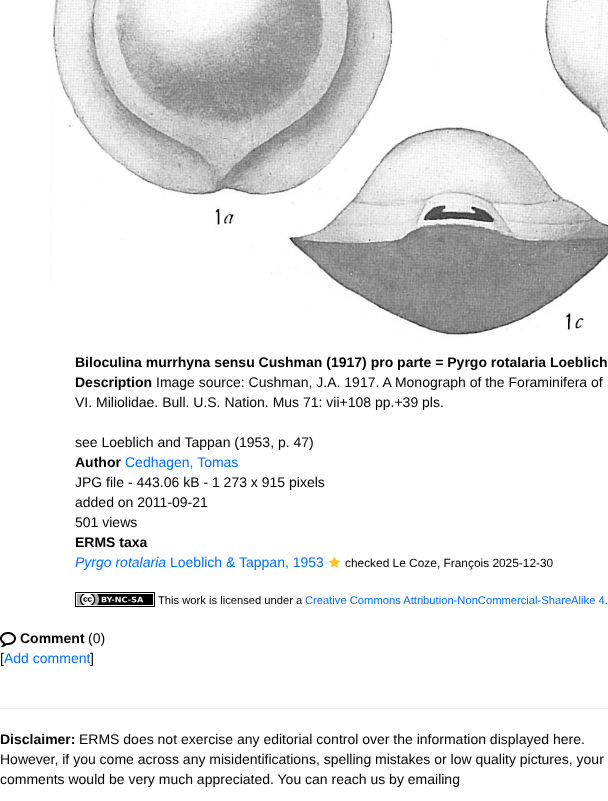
<svg xmlns="http://www.w3.org/2000/svg" width="608" height="801">
<rect width="100%" height="100%" fill="#fff"/>
<image x="50" y="0" width="558" height="338" href="media/1.png"/>
<text x="75" y="367" style="font-family:Liberation Sans;font-size:14px;font-weight:bold;fill:#000">Biloculina murrhyna sensu Cushman (1917) pro parte = Pyrgo rotalaria Loeblich</text>
<text x="75" y="387" style="font-family:Liberation Sans;font-size:14px;font-weight:bold;fill:#000">Description</text>
<text x="156" y="387" style="font-family:Liberation Sans;font-size:14px;fill:#000">Image source: Cushman, J.A. 1917. A Monograph of the Foraminifera of</text>
<text x="75" y="407" style="font-family:Liberation Sans;font-size:14px;fill:#000">VI. Miliolidae. Bull. U.S. Nation. Mus 71: vii+108 pp.+39 pls.</text>
<text x="75" y="447" style="font-family:Liberation Sans;font-size:14px;fill:#000">see Loeblich and Tappan (1953, p. 47)</text>
<text x="75" y="467" style="font-family:Liberation Sans;font-size:14px;font-weight:bold;fill:#000">Author</text>
<text x="125" y="467" style="font-family:Liberation Sans;font-size:14px;fill:#026dfb">Cedhagen, Tomas</text>
<text x="75" y="487" style="font-family:Liberation Sans;font-size:14px;fill:#000">JPG file - 443.06 kB - 1 273 x 915 pixels</text>
<text x="75" y="507" style="font-family:Liberation Sans;font-size:14px;fill:#000">added on 2011-09-21</text>
<text x="75" y="527" style="font-family:Liberation Sans;font-size:14px;fill:#000">501 views</text>
<text x="75" y="547" style="font-family:Liberation Sans;font-size:14px;font-weight:bold;fill:#000">ERMS taxa</text>
<text x="75" y="567" style="font-family:Liberation Sans;font-size:14px;font-style:italic;fill:#026dfb">Pyrgo rotalaria</text>
<text x="170" y="567" style="font-family:Liberation Sans;font-size:14px;fill:#026dfb">Loeblich &amp; Tappan, 1953</text>
<image x="329" y="557" width="11" height="11" href="media/2.png"/>
<text x="345" y="567" style="font-family:Liberation Sans;font-size:11.9px;fill:#000">checked Le Coze, François 2025-12-30</text>
<image x="75" y="592" width="80" height="15" href="media/3.png"/>
<text x="158" y="604" style="font-family:Liberation Sans;font-size:11.2px;fill:#000">This work is licensed under a</text>
<text x="305" y="604" style="font-family:Liberation Sans;font-size:11.2px;fill:#026dfb">Creative Commons Attribution-NonCommercial-ShareAlike 4.</text>
<image x="0" y="632" width="16" height="15" href="media/4.png"/>
<text x="20" y="643" style="font-family:Liberation Sans;font-size:14px;font-weight:bold;fill:#000">Comment</text>
<text x="88" y="643" style="font-family:Liberation Sans;font-size:14px;fill:#000">(0)</text>
<text x="0" y="663" style="font-family:Liberation Sans;font-size:14px;fill:#000">[</text>
<text x="4" y="663" style="font-family:Liberation Sans;font-size:14px;fill:#026dfb">Add comment</text>
<text x="90" y="663" style="font-family:Liberation Sans;font-size:14px;fill:#000">]</text>
<rect y="708" width="608" height="1" fill="#eee"/>
<text x="0" y="744" style="font-family:Liberation Sans;font-size:14px;font-weight:bold;fill:#000">Disclaimer:</text>
<text x="79" y="744" style="font-family:Liberation Sans;font-size:14px;fill:#000">ERMS does not exercise any editorial control over the information displayed here.</text>
<text x="0" y="764" style="font-family:Liberation Sans;font-size:14px;fill:#000">However, if you come across any misidentifications, spelling mistakes or low quality pictures, your</text>
<text x="0" y="784" style="font-family:Liberation Sans;font-size:14px;fill:#000">comments would be very much appreciated. You can reach us by emailing</text>
</svg>
